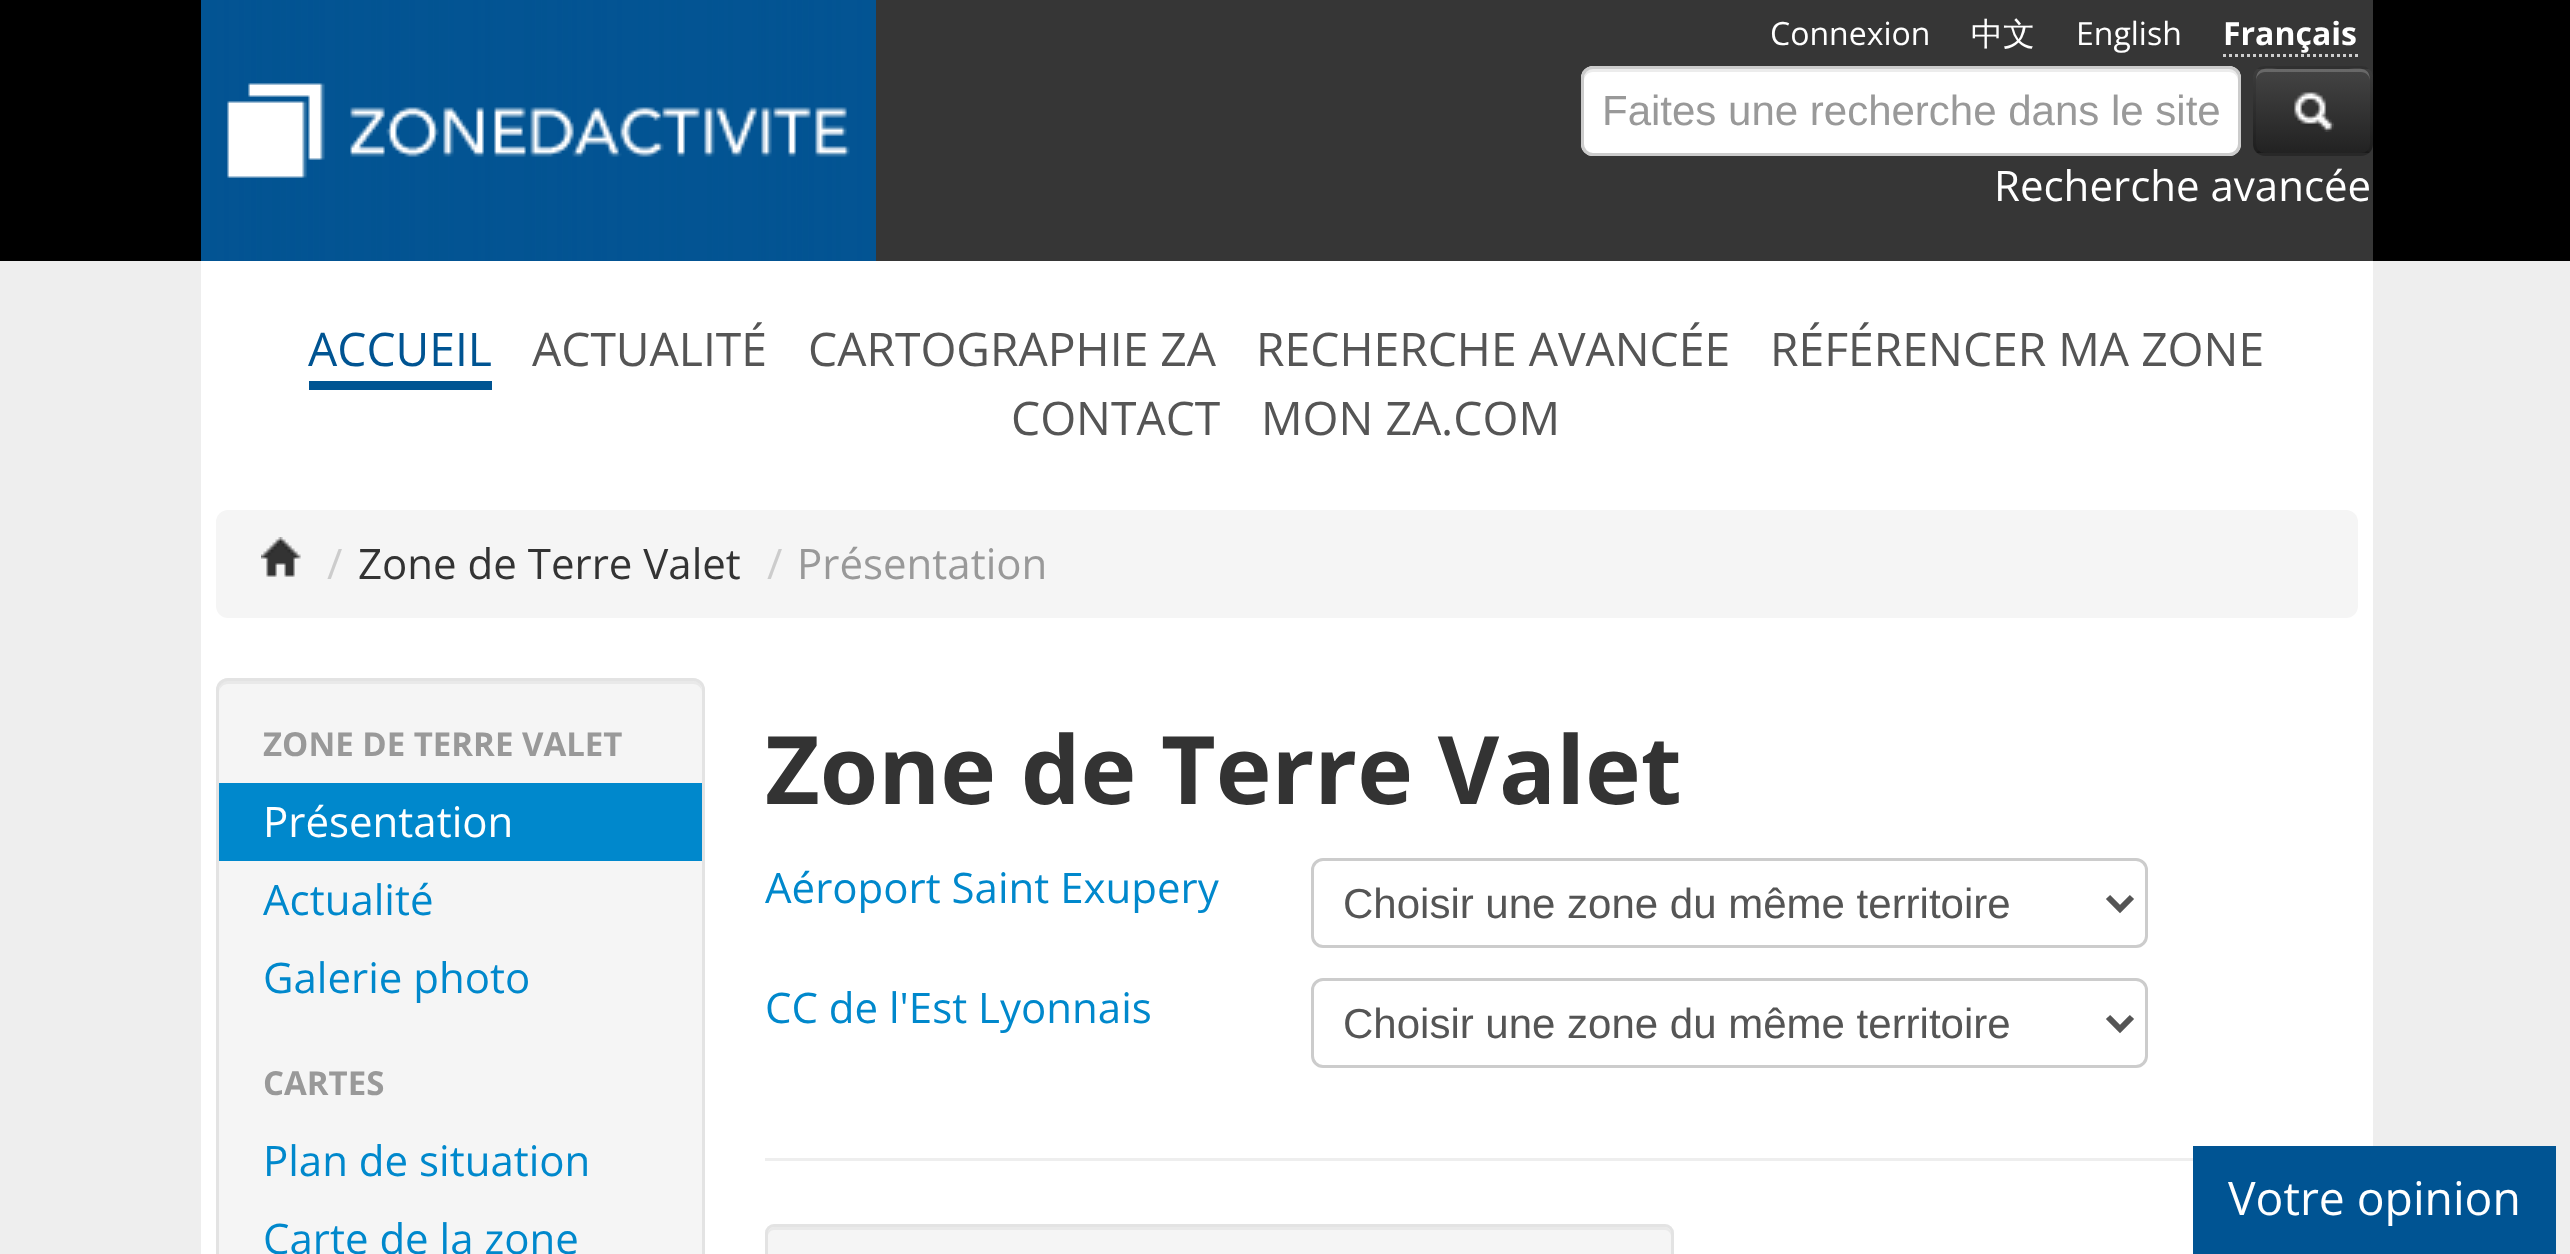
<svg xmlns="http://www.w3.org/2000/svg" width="2570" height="1254">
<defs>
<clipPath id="clip1"><rect x="2253" y="66" width="120" height="90" rx="12"/></clipPath>
<linearGradient id="g1" gradientUnits="userSpaceOnUse" x1="2313" y1="69" x2="2313" y2="153"><stop offset="0" stop-color="#444"/><stop offset="1" stop-color="#222"/></linearGradient>
</defs>
<rect width="100%" height="100%" fill="#eee"/>
<rect width="2570" height="261" fill="#000"/>
<rect x="876" width="1497" height="261" fill="#363636"/>
<image x="201" y="0" width="675" height="261" href="media/1.png"/>
<text x="1770" y="45" style="font-family:Open Sans;font-size:32px;fill:#fff">Connexion</text>
<text x="1971" y="45" style="font-family:WenQuanYi Zen Hei;font-size:32px;font-weight:500;fill:#fff">中文</text>
<text x="2076" y="45" style="font-family:Open Sans;font-size:32px;fill:#fff">English</text>
<text x="2223" y="45" style="font-family:Open Sans;font-size:32px;font-weight:bold;fill:#fff">Français</text>
<path d="M2223 55.5h135" fill="none" stroke="#cecece" stroke-width="3" stroke-dasharray="3 3"/>
<rect x="1581" y="66" width="660" height="90" rx="12" fill="#fff"/>
<path d="M1593 72h636c5 0 9 4 9 9v-3c0-5-4-9-9-9h-636c-5 0-9 4-9 9v3c0-5 4-9 9-9z" fill="#ececec"/>
<rect x="1582.5" y="67.5" width="657" height="87" rx="10.5" fill="none" stroke="#ccc" stroke-width="3"/>
<text x="1602" y="125" style="font-family:Liberation Sans;font-size:42px;fill:#999">Faites une recherche dans le site</text>
<g clip-path="url(#clip1)">
<rect x="2253" y="69" width="120" height="84" fill="url(#g1)"/>
</g>
<path d="M2265 72h96c5 0 9 4 9 9c0-16-12-12-25-12h-64c-13 0-25-4-25 12c0-5 4-9 9-9z" fill="#ffffff33"/>
<path d="M2368.5 151.5c-2 2-4.5 3-7.5 3h-96c-3 0-5.5-1-7.5-3" fill="none" stroke="#00000040" stroke-width="3"/>
<path d="M2257.5 151.5c-2-2-3-4.5-3-7.5v-66c0-3 1-5.5 3-7.5c2-2 4.5-3 7.5-3h96c3 0 5.5 1 7.5 3c2 2 3 4.5 3 7.5v66c0 3-1 5.5-3 7.5" fill="none" stroke="#0000001a" stroke-width="3"/>
<image x="2294" y="92" width="40" height="40" href="media/2.png"/>
<text x="1994" y="201" style="font-family:Open Sans;font-size:42px;fill:#fff">Recherche avancée</text>
<rect x="201" y="261" width="2172" height="993" fill="#fff"/>
<rect x="309" y="381" width="183" height="9" fill="#005492"/>
<text x="308" y="366" style="font-family:Open Sans;font-size:46.25px;fill:#005492">ACCUEIL</text>
<text x="532" y="366" style="font-family:Open Sans;font-size:46.25px;fill:#555">ACTUALITÉ</text>
<text x="808" y="366" style="font-family:Open Sans;font-size:46.25px;fill:#555">CARTOGRAPHIE ZA</text>
<text x="1256" y="366" style="font-family:Open Sans;font-size:46.25px;fill:#555">RECHERCHE AVANCÉE</text>
<text x="1770" y="366" style="font-family:Open Sans;font-size:46.25px;fill:#555">RÉFÉRENCER MA ZONE</text>
<text x="1011" y="435" style="font-family:Open Sans;font-size:46.25px;fill:#555">CONTACT</text>
<text x="1261" y="435" style="font-family:Open Sans;font-size:46.25px;fill:#555">MON ZA.COM</text>
<rect x="216" y="510" width="2142" height="108" rx="12" fill="#f5f5f5"/>
<image x="261" y="537" width="40" height="40" href="media/3.png"/>
<text x="327" y="579" style="font-family:Open Sans;font-size:42px;fill:#ccc">/</text>
<text x="358" y="579" style="font-family:Open Sans;font-size:42px;fill:#333">Zone de Terre Valet</text>
<text x="767" y="579" style="font-family:Open Sans;font-size:42px;fill:#ccc">/</text>
<text x="797" y="579" style="font-family:Open Sans;font-size:42px;fill:#999">Présentation</text>
<rect x="216" y="678" width="489" height="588" rx="12" fill="#f5f5f5"/>
<path d="M228 684h465c5 0 9 4 9 9c0-6-2-12-9-12h-467c-6 1-7 7-7 12c0-5 4-9 9-9z" fill="#e9e9e9"/>
<rect x="217.5" y="679.5" width="486" height="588" rx="10.5" fill="none" stroke="#e3e3e3" stroke-width="3"/>
<text x="263" y="756" style="font-family:Open Sans;font-size:33px;font-weight:bold;fill:#999">ZONE DE TERRE VALET</text>
<rect x="219" y="783" width="483" height="78" fill="#08c"/>
<text x="263" y="837" style="font-family:Open Sans;font-size:42px;fill:#fff">Présentation</text>
<text x="263" y="915" style="font-family:Open Sans;font-size:42px;fill:#08c">Actualité</text>
<text x="263" y="993" style="font-family:Open Sans;font-size:42px;fill:#08c">Galerie photo</text>
<text x="263" y="1095" style="font-family:Open Sans;font-size:33px;font-weight:bold;fill:#999">CARTES</text>
<text x="263" y="1176" style="font-family:Open Sans;font-size:42px;fill:#08c">Plan de situation</text>
<text x="263" y="1254" style="font-family:Open Sans;font-size:42px;fill:#08c">Carte de la zone</text>
<text x="765" y="804" style="font-family:Open Sans;font-size:94.5px;font-weight:bold;fill:#333">Zone de Terre Valet</text>
<text x="765" y="903" style="font-family:Open Sans;font-size:42px;fill:#08c">Aéroport Saint Exupery</text>
<rect x="1312.5" y="859.5" width="834" height="87" rx="10.5" fill="none" stroke="#ccc" stroke-width="3"/>
<path d="M2108 897l12 12l12-12" fill="none" stroke="#555" stroke-width="6"/>
<text x="1343" y="918" style="font-family:Liberation Sans;font-size:42px;fill:#555">Choisir une zone du même territoire</text>
<text x="765" y="1023" style="font-family:Open Sans;font-size:42px;fill:#08c">CC de l'Est Lyonnais</text>
<rect x="1312.5" y="979.5" width="834" height="87" rx="10.5" fill="none" stroke="#ccc" stroke-width="3"/>
<path d="M2108 1017l12 12l12-12" fill="none" stroke="#555" stroke-width="6"/>
<text x="1343" y="1038" style="font-family:Liberation Sans;font-size:42px;fill:#555">Choisir une zone du même territoire</text>
<rect x="765" y="1158" width="1428" height="3" fill="#eee"/>
<rect x="765" y="1224" width="909" height="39" rx="9" fill="#f5f5f5"/>
<path d="M774 1230h891c3 0 6 3 6 6v-3c0-3-3-6-6-6h-891c-3 0-6 3-6 6v3c0-3 3-6 6-6z" fill="#e9e9e9"/>
<rect x="766.5" y="1225.5" width="906" height="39" rx="7.5" fill="none" stroke="#e3e3e3" stroke-width="3"/>
<rect x="2193" y="1146" width="363" height="108" fill="#005493"/>
<text x="2228" y="1215" style="font-family:Open Sans;font-size:46.25px;fill:#fff">Votre opinion</text>
</svg>
